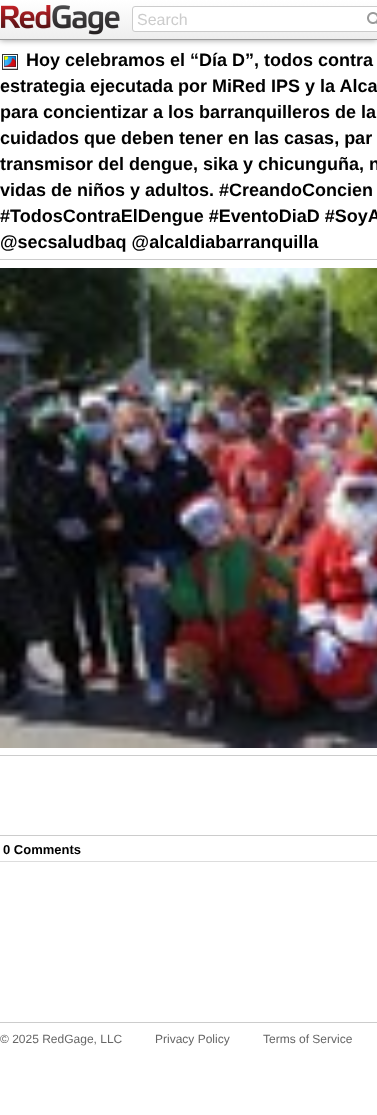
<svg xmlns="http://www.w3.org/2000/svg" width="377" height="1115">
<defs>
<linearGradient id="g1" gradientUnits="userSpaceOnUse" x1="189" y1="0" x2="189" y2="39"><stop offset="0" stop-color="#fff"/><stop offset="1" stop-color="#eee"/></linearGradient>
</defs>
<rect width="100%" height="100%" fill="#fff"/>
<rect width="377" height="40" fill="#00000066" filter="blur(3px)"/>
<rect width="377" height="39" fill="url(#g1)"/>
<rect y="39" width="377" height="1" fill="#999"/>
<image x="1" y="5" width="119" height="30" href="media/1.png"/>
<rect x="132.5" y="6.5" width="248" height="25" rx="2.5" fill="#fff" stroke="#ccc"/>
<text x="137" y="25" style="font-family:Liberation Sans;font-size:16px;fill:#ccc">Search</text>
<image x="367" y="12" width="10" height="12" href="media/2.png"/>
<rect y="259" width="377" height="1" fill="#ccc"/>
<image x="2" y="54" width="16" height="16" href="media/3.png"/>
<text x="26" y="66" style="font-family:Liberation Sans;font-size:18px;font-weight:bold;fill:#000">Hoy celebramos el “Día D”, todos contra</text>
<text x="0" y="92" style="font-family:Liberation Sans;font-size:18px;font-weight:bold;fill:#000">estrategia ejecutada por MiRed IPS y la Alca</text>
<text x="0" y="118" style="font-family:Liberation Sans;font-size:18px;font-weight:bold;fill:#000">para concientizar a los barranquilleros de la</text>
<text x="0" y="144" style="font-family:Liberation Sans;font-size:18px;font-weight:bold;fill:#000">cuidados que deben tener en las casas, par</text>
<text x="0" y="170" style="font-family:Liberation Sans;font-size:18px;font-weight:bold;fill:#000">transmisor del dengue, sika y chicunguña, n</text>
<text x="0" y="196" style="font-family:Liberation Sans;font-size:18px;font-weight:bold;fill:#000">vidas de niños y adultos. #CreandoConcien</text>
<text x="0" y="222" style="font-family:Liberation Sans;font-size:18px;font-weight:bold;fill:#000">#TodosContraElDengue #EventoDiaD #SoyA</text>
<text x="0" y="248" style="font-family:Liberation Sans;font-size:18px;font-weight:bold;fill:#000">@secsaludbaq @alcaldiabarranquilla</text>
<image x="0" y="268" width="377" height="480" href="media/4.png"/>
<rect y="755" width="377" height="1" fill="#ccc"/>
<rect y="835" width="377" height="1" fill="#ccc"/>
<rect y="861" width="377" height="1" fill="#ddd"/>
<text x="3" y="854" style="font-family:Liberation Sans;font-size:13px;font-weight:bold;fill:#000">0 Comments</text>
<rect y="1022" width="377" height="1" fill="#ccc"/>
<text x="0" y="1043" style="font-family:Liberation Sans;font-size:12px;fill:#666">© 2025 RedGage, LLC</text>
<text x="155" y="1043" style="font-family:Liberation Sans;font-size:12px;fill:#666">Privacy Policy</text>
<text x="263" y="1043" style="font-family:Liberation Sans;font-size:12px;fill:#666">Terms of Service</text>
</svg>
